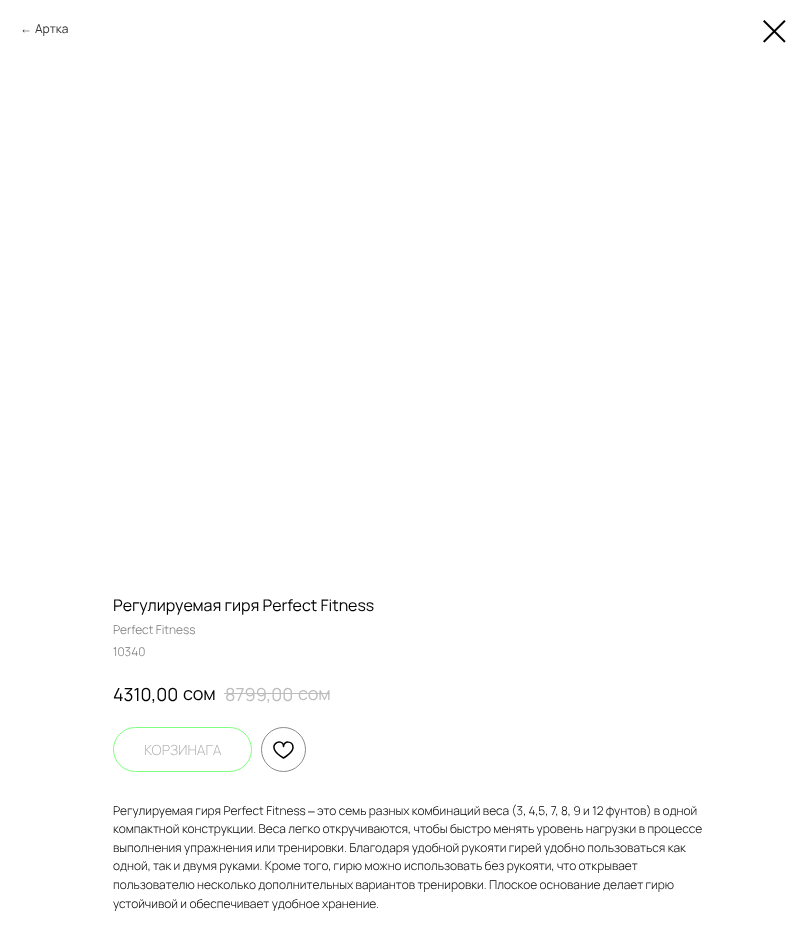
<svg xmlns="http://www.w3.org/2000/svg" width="806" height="940">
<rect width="100%" height="100%" fill="#fff"/>
<text x="20" y="33" style="font-family:Liberation Sans;font-size:12px;fill:#333">←</text>
<text x="35" y="33" style="font-family:Manrope;font-size:12px;fill:#333">Артка</text>
<image x="763" y="20" width="23" height="23" href="media/1.png"/>
<text x="113" y="611" style="font-family:Manrope;font-size:16px;fill:#000">Регулируемая гиря Perfect Fitness</text>
<text x="113" y="634" style="font-family:Manrope;font-size:12px;font-weight:300;fill:#777">Perfect Fitness</text>
<text x="113" y="656" style="font-family:Manrope;font-size:12px;font-weight:300;fill:#777">10340</text>
<text x="113" y="701" style="font-family:Manrope;font-size:18px;fill:#000">4310,00</text>
<text x="183" y="700" style="font-family:Manrope;font-size:18px;fill:#000">сом</text>
<text x="225" y="701" style="font-family:Manrope;font-size:18px;fill:#bdbdbd">8799,00</text>
<text x="298" y="700" style="font-family:Manrope;font-size:18px;fill:#bdbdbd">сом</text>
<rect x="224" y="693" width="106" height="1" fill="#bdbdbd"/>
<rect x="113.5" y="727.5" width="138" height="44" rx="22" fill="none" stroke="#80ff80"/>
<text x="144" y="755" style="font-family:Manrope;font-size:14px;font-weight:300;fill:#b6b6b6">КОРЗИНАГА</text>
<circle cx="283.5" cy="749.5" r="22" fill="none" stroke="#888b8d"/>
<path d="M293 747.5c0 5-9.5 10.5-9.5 10.5c-21.5-12.5 0-22 0-11.5c0-6 9.5-6 9.5 1z" fill="none" stroke="#000" stroke-width="1.5" stroke-linejoin="round"/>
<text x="113" y="815" style="font-family:Manrope;font-size:12px;font-weight:300;fill:#000">Регулируемая гиря Perfect Fitness</text>
<text x="308" y="815" style="font-family:Liberation Sans;font-size:12px;fill:#000">–</text>
<text x="317" y="815" style="font-family:Manrope;font-size:12px;font-weight:300;fill:#000">это семь разных комбинаций веса (3, 4,5, 7, 8, 9 и 12 фунтов) в одной</text>
<text x="113" y="833" style="font-family:Manrope;font-size:12px;font-weight:300;fill:#000">компактной конструкции. Веса легко откручиваются, чтобы быстро менять уровень нагрузки в процессе</text>
<text x="113" y="852" style="font-family:Manrope;font-size:12px;font-weight:300;fill:#000">выполнения упражнения или тренировки. Благодаря удобной рукояти гирей удобно пользоваться как</text>
<text x="113" y="870" style="font-family:Manrope;font-size:12px;font-weight:300;fill:#000">одной, так и двумя руками. Кроме того, гирю можно использовать без рукояти, что открывает</text>
<text x="113" y="889" style="font-family:Manrope;font-size:12px;font-weight:300;fill:#000">пользователю несколько дополнительных вариантов тренировки. Плоское основание делает гирю</text>
<text x="113" y="908" style="font-family:Manrope;font-size:12px;font-weight:300;fill:#000">устойчивой и обеспечивает удобное хранение.</text>
</svg>
